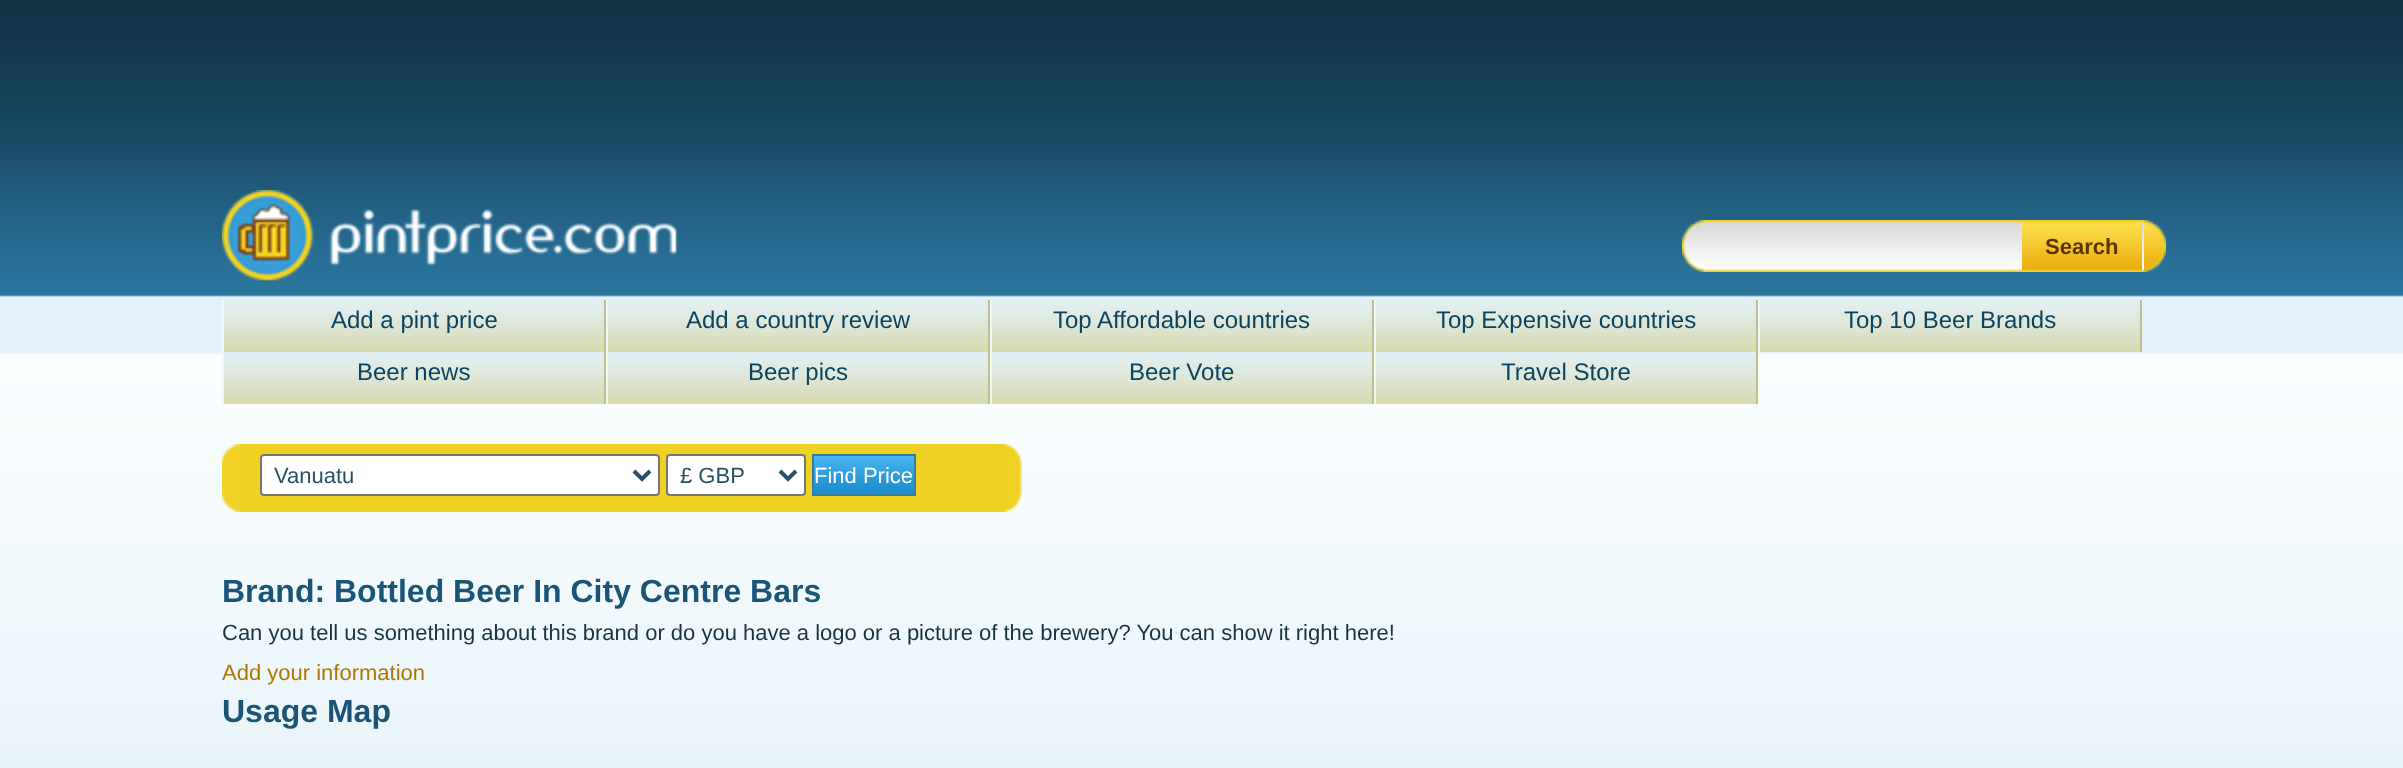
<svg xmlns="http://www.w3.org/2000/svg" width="2403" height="768">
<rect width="100%" height="100%" fill="#fff"/>
<image x="0" y="0" width="2403" height="768" href="media/1.png"/>
<image x="222" y="190" width="455" height="91" href="media/2.png"/>
<image x="1682" y="220" width="22" height="52" href="media/3.png"/>
<image x="1704" y="220" width="440" height="52" href="media/4.png"/>
<image x="2022" y="221" width="120" height="50" href="media/5.png"/>
<text x="2045" y="254" style="font-family:Liberation Sans;font-size:22px;font-weight:bold;fill:#5e3305">Search</text>
<image x="2144" y="220" width="22" height="52" href="media/6.png"/>
<image x="224" y="300" width="380" height="52" href="media/7.png"/>
<rect x="604" y="300" width="2" height="104" fill="#c0c186"/>
<rect x="222" y="300" width="2" height="104" fill="#ecf8fc"/>
<text x="331" y="328" style="font-family:Liberation Sans;font-size:24px;fill:#0b4461">Add a pint price</text>
<image x="608" y="300" width="380" height="52" href="media/7.png"/>
<rect x="988" y="300" width="2" height="104" fill="#c0c186"/>
<rect x="606" y="300" width="2" height="104" fill="#ecf8fc"/>
<text x="686" y="328" style="font-family:Liberation Sans;font-size:24px;fill:#0b4461">Add a country review</text>
<image x="992" y="300" width="380" height="52" href="media/7.png"/>
<rect x="1372" y="300" width="2" height="104" fill="#c0c186"/>
<rect x="990" y="300" width="2" height="104" fill="#ecf8fc"/>
<text x="1053" y="328" style="font-family:Liberation Sans;font-size:24px;fill:#0b4461">Top Affordable countries</text>
<image x="1376" y="300" width="380" height="52" href="media/7.png"/>
<rect x="1756" y="300" width="2" height="104" fill="#c0c186"/>
<rect x="1374" y="300" width="2" height="104" fill="#ecf8fc"/>
<text x="1436" y="328" style="font-family:Liberation Sans;font-size:24px;fill:#0b4461">Top Expensive countries</text>
<image x="1760" y="300" width="380" height="52" href="media/7.png"/>
<rect x="2140" y="300" width="2" height="52" fill="#c0c186"/>
<rect x="1758" y="300" width="2" height="52" fill="#ecf8fc"/>
<text x="1844" y="328" style="font-family:Liberation Sans;font-size:24px;fill:#0b4461">Top 10 Beer Brands</text>
<image x="224" y="352" width="380" height="52" href="media/7.png"/>
<text x="357" y="380" style="font-family:Liberation Sans;font-size:24px;fill:#0b4461">Beer news</text>
<image x="608" y="352" width="380" height="52" href="media/7.png"/>
<text x="748" y="380" style="font-family:Liberation Sans;font-size:24px;fill:#0b4461">Beer pics</text>
<image x="992" y="352" width="380" height="52" href="media/7.png"/>
<text x="1129" y="380" style="font-family:Liberation Sans;font-size:24px;fill:#0b4461">Beer Vote</text>
<image x="1376" y="352" width="380" height="52" href="media/7.png"/>
<text x="1501" y="380" style="font-family:Liberation Sans;font-size:24px;fill:#0b4461">Travel Store</text>
<image x="222" y="444" width="18" height="68" href="media/8.png"/>
<rect x="240" y="444" width="764" height="68" fill="#efd124"/>
<rect x="261" y="455" width="398" height="40" rx="3" fill="#fff" stroke="#767676" stroke-width="2"/>
<path d="M634 471l8 8l8-8" fill="none" stroke="#295066" stroke-width="4"/>
<text x="274" y="483" style="font-family:Liberation Sans;font-size:22px;fill:#295066">Vanuatu</text>
<rect x="667" y="455" width="138" height="40" rx="3" fill="#fff" stroke="#767676" stroke-width="2"/>
<path d="M780 471l8 8l8-8" fill="none" stroke="#295066" stroke-width="4"/>
<text x="680" y="483" style="font-family:Liberation Sans;font-size:22px;fill:#295066">£ GBP</text>
<rect x="814" y="456" width="100" height="1" fill="#4db7f3"/>
<image x="814" y="457" width="100" height="37" href="media/9.png"/>
<rect x="813" y="455" width="102" height="40" fill="none" stroke="#327ca2" stroke-width="2"/>
<text x="814" y="483" style="font-family:Liberation Sans;font-size:22px;fill:#fff">Find Price</text>
<image x="1004" y="444" width="18" height="68" href="media/10.png"/>
<text x="222" y="602" style="font-family:Liberation Sans;font-size:32px;font-weight:bold;fill:#1b5576">Brand: Bottled Beer In City Centre Bars</text>
<text x="222" y="640" style="font-family:Liberation Sans;font-size:22px;fill:#1b3341">Can you tell us something about this brand or do you have a logo or a picture of the brewery? You can show it right here!</text>
<text x="222" y="680" style="font-family:Liberation Sans;font-size:22px;fill:#ae7800">Add your information</text>
<text x="222" y="722" style="font-family:Liberation Sans;font-size:32px;font-weight:bold;fill:#1b5576">Usage Map</text>
</svg>
